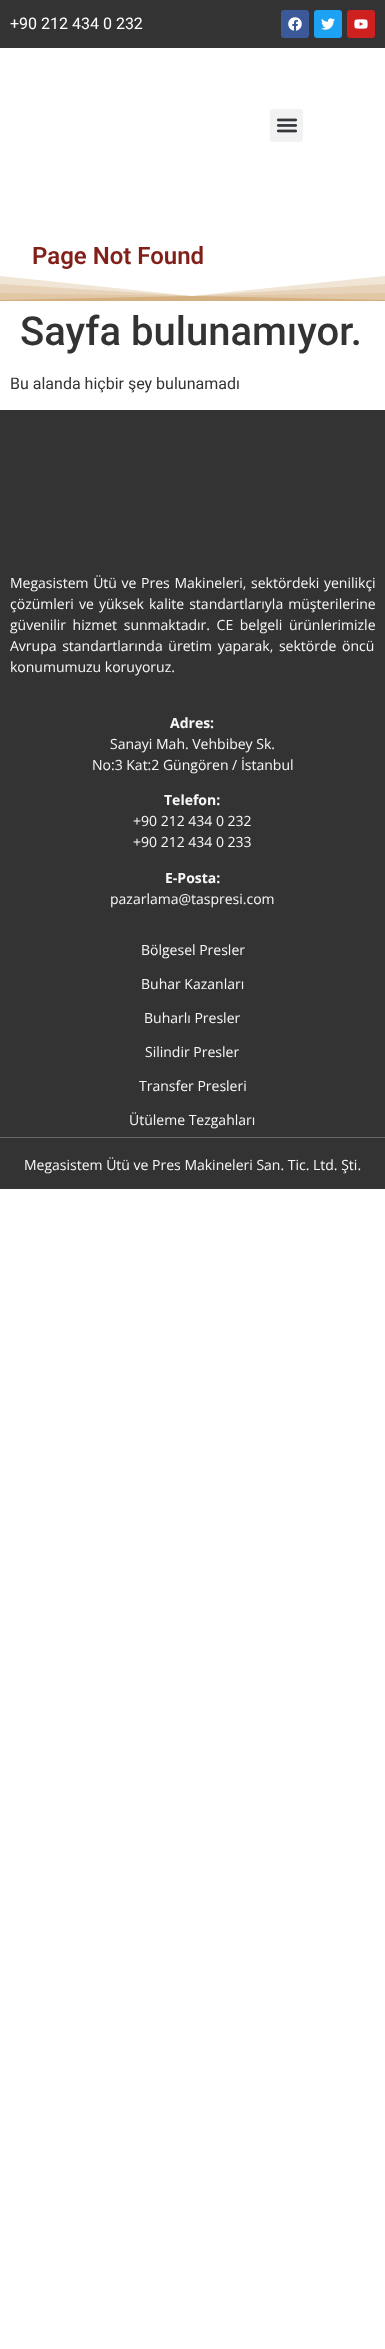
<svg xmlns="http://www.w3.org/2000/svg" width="385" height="2349">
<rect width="100%" height="100%" fill="#fff"/>
<rect width="385" height="48" fill="#333"/>
<text x="10" y="29" style="font-family:Roboto;font-size:16px;fill:#fff">+90 212 434 0 232</text>
<rect x="281" y="10" width="28" height="28" rx="3" fill="#3b5998"/>
<image x="288" y="17" width="14" height="14" href="media/1.png"/>
<rect x="314" y="10" width="28" height="28" rx="3" fill="#1da1f2"/>
<image x="321" y="18" width="14" height="12" href="media/2.png"/>
<rect x="347" y="10" width="28" height="28" rx="3" fill="#cd201f"/>
<image x="354" y="19" width="14" height="10" href="media/3.png"/>
<rect x="270" y="109" width="33" height="33" rx="3" fill="#f2f2f2"/>
<image x="276" y="118" width="22" height="15" href="media/4.png"/>
<text x="32" y="264" style="font-family:Roboto;font-size:24px;font-weight:600;fill:#821f18">Page Not Found</text>
<path d="M385 301v-25l-193 20l-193-20v25z" fill="#f1e5d5"/>
<path d="M385 301v-17l-193 12l-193-12v17z" fill="#d4af7f54"/>
<path d="M385 301v-8l-193 3l-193-3v8z" fill="#e1c7a6"/>
<path d="M385 301v-1l-193-4l-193 4v1z" fill="#d4af7f"/>
<text x="20" y="345" style="font-family:Roboto;font-size:40px;font-weight:500;fill:#333">Sayfa bulunamıyor.</text>
<text x="10" y="389" style="font-family:Roboto;font-size:16px;fill:#333">Bu alanda hiçbir şey bulunamadı</text>
<rect y="410" width="385" height="727" fill="#333"/>
<text x="10" y="588" word-spacing="1" style="font-family:Open Sans;font-size:14px;fill:#f8f8f8">Megasistem Ütü ve Pres Makineleri, sektördeki yenilikçi</text>
<text x="10" y="609" word-spacing="1.5" style="font-family:Open Sans;font-size:14px;fill:#f8f8f8">çözümleri ve yüksek kalite standartlarıyla müşterilerine</text>
<text x="10" y="630" word-spacing="3" style="font-family:Open Sans;font-size:14px;fill:#f8f8f8">güvenilir hizmet sunmaktadır. CE belgeli ürünlerimizle</text>
<text x="10" y="651" word-spacing="2" style="font-family:Open Sans;font-size:14px;fill:#f8f8f8">Avrupa standartlarında üretim yaparak, sektörde öncü</text>
<text x="10" y="672" style="font-family:Open Sans;font-size:14px;fill:#f8f8f8">konumumuzu koruyoruz.</text>
<text x="170" y="728" style="font-family:Open Sans;font-size:14px;font-weight:bold;fill:#f8f8f8">Adres:</text>
<text x="110" y="749" style="font-family:Open Sans;font-size:14px;fill:#f8f8f8">Sanayi Mah. Vehbibey Sk.</text>
<text x="92" y="770" style="font-family:Open Sans;font-size:14px;fill:#f8f8f8">No:3 Kat:2 Güngören / İstanbul</text>
<text x="164" y="805" style="font-family:Open Sans;font-size:14px;font-weight:bold;fill:#f8f8f8">Telefon:</text>
<text x="133" y="826" style="font-family:Open Sans;font-size:14px;fill:#f8f8f8">+90 212 434 0 232</text>
<text x="133" y="847" style="font-family:Open Sans;font-size:14px;fill:#f8f8f8">+90 212 434 0 233</text>
<text x="165" y="883" style="font-family:Open Sans;font-size:14px;font-weight:bold;fill:#f8f8f8">E-Posta:</text>
<text x="110" y="904" style="font-family:Open Sans;font-size:14px;fill:#f8f8f8">pazarlama@taspresi.com</text>
<text x="141" y="955" style="font-family:Open Sans;font-size:14px;fill:#f8f8f8">Bölgesel Presler</text>
<text x="141" y="989" style="font-family:Open Sans;font-size:14px;fill:#f8f8f8">Buhar Kazanları</text>
<text x="144" y="1023" style="font-family:Open Sans;font-size:14px;fill:#f8f8f8">Buharlı Presler</text>
<text x="145" y="1057" style="font-family:Open Sans;font-size:14px;fill:#f8f8f8">Silindir Presler</text>
<text x="139" y="1091" style="font-family:Open Sans;font-size:14px;fill:#f8f8f8">Transfer Presleri</text>
<text x="129" y="1125" style="font-family:Open Sans;font-size:14px;fill:#f8f8f8">Ütüleme Tezgahları</text>
<rect y="1138" width="385" height="51" fill="#333"/>
<rect y="1137" width="385" height="1" fill="#686868"/>
<text x="24" y="1170" style="font-family:Open Sans;font-size:14px;fill:#f8f8f8">Megasistem Ütü ve Pres Makineleri San. Tic. Ltd. Şti.</text>
</svg>
